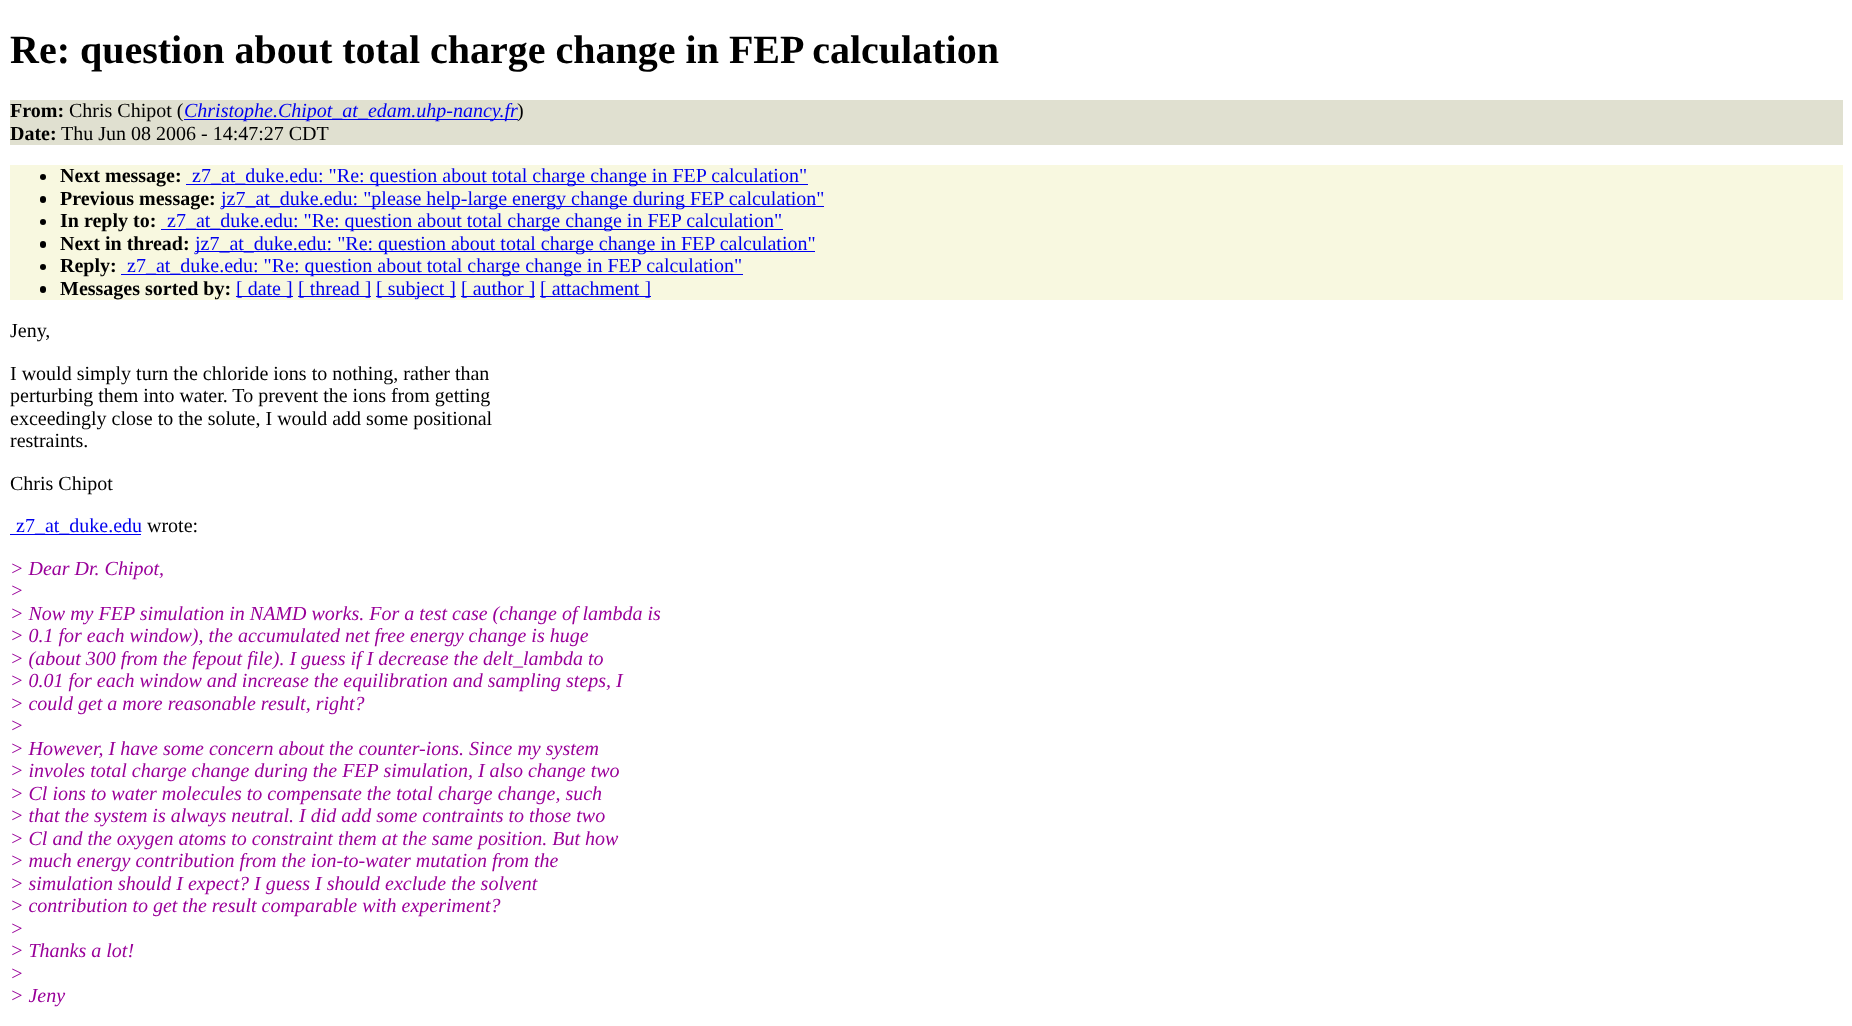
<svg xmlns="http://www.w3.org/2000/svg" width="1852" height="1026">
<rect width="100%" height="100%" fill="#fff"/>
<text x="10" y="63" style="font-family:Liberation Serif;font-size:40px;font-weight:bold;fill:#000">Re: question about total charge change in FEP calculation</text>
<rect x="10" y="100" width="1833" height="45" fill="#e0e0d0"/>
<text x="10" y="117" style="font-family:Liberation Serif;font-size:20px;font-weight:bold;fill:#000">From:</text>
<text x="69" y="117" style="font-family:Liberation Serif;font-size:20px;fill:#000">Chris Chipot (</text>
<rect x="184" y="119" width="334" height="1" fill="#00e"/>
<text x="184" y="117" style="font-family:Liberation Serif;font-size:20px;font-style:italic;fill:#00e">Christophe.Chipot_at_edam.uhp-nancy.fr</text>
<text x="517" y="117" style="font-family:Liberation Serif;font-size:20px;fill:#000">)</text>
<text x="10" y="140" style="font-family:Liberation Serif;font-size:20px;font-weight:bold;fill:#000">Date:</text>
<text x="61" y="140" style="font-family:Liberation Serif;font-size:20px;fill:#000">Thu Jun 08 2006 - 14:47:27 CDT</text>
<rect x="10" y="165" width="1833" height="135" fill="#f8f8e0"/>
<circle cx="43" cy="177" r="3" fill="#000"/>
<text x="60" y="182" style="font-family:Liberation Serif;font-size:20px;font-weight:bold;fill:#000">Next message:</text>
<rect x="186" y="184" width="622" height="1" fill="#00e"/>
<text x="192" y="182" style="font-family:Liberation Serif;font-size:20px;fill:#00e">z7_at_duke.edu: "Re: question about total charge change in FEP calculation"</text>
<rect x="40" y="196" width="6" height="7" rx="3" fill="#000"/>
<text x="60" y="205" style="font-family:Liberation Serif;font-size:20px;font-weight:bold;fill:#000">Previous message:</text>
<rect x="221" y="206" width="603" height="1" fill="#00e"/>
<text x="221" y="205" style="font-family:Liberation Serif;font-size:20px;fill:#00e">jz7_at_duke.edu: "please help-large energy change during FEP calculation"</text>
<circle cx="43" cy="222" r="3" fill="#000"/>
<text x="60" y="227" style="font-family:Liberation Serif;font-size:20px;font-weight:bold;fill:#000">In reply to:</text>
<rect x="161" y="229" width="622" height="1" fill="#00e"/>
<text x="167" y="227" style="font-family:Liberation Serif;font-size:20px;fill:#00e">z7_at_duke.edu: "Re: question about total charge change in FEP calculation"</text>
<rect x="40" y="241" width="6" height="7" rx="3" fill="#000"/>
<text x="60" y="250" style="font-family:Liberation Serif;font-size:20px;font-weight:bold;fill:#000">Next in thread:</text>
<rect x="195" y="251" width="620" height="1" fill="#00e"/>
<text x="195" y="250" style="font-family:Liberation Serif;font-size:20px;fill:#00e">jz7_at_duke.edu: "Re: question about total charge change in FEP calculation"</text>
<circle cx="43" cy="267" r="3" fill="#000"/>
<text x="60" y="272" style="font-family:Liberation Serif;font-size:20px;font-weight:bold;fill:#000">Reply:</text>
<rect x="121" y="274" width="622" height="1" fill="#00e"/>
<text x="127" y="272" style="font-family:Liberation Serif;font-size:20px;fill:#00e">z7_at_duke.edu: "Re: question about total charge change in FEP calculation"</text>
<rect x="40" y="286" width="6" height="7" rx="3" fill="#000"/>
<text x="60" y="295" style="font-family:Liberation Serif;font-size:20px;font-weight:bold;fill:#000">Messages sorted by:</text>
<rect x="236" y="296" width="57" height="1" fill="#00e"/>
<text x="236" y="295" style="font-family:Liberation Serif;font-size:20px;fill:#00e">[ date ]</text>
<rect x="298" y="296" width="73" height="1" fill="#00e"/>
<text x="298" y="295" style="font-family:Liberation Serif;font-size:20px;fill:#00e">[ thread ]</text>
<rect x="376" y="296" width="80" height="1" fill="#00e"/>
<text x="376" y="295" style="font-family:Liberation Serif;font-size:20px;fill:#00e">[ subject ]</text>
<rect x="461" y="296" width="74" height="1" fill="#00e"/>
<text x="461" y="295" style="font-family:Liberation Serif;font-size:20px;fill:#00e">[ author ]</text>
<rect x="540" y="296" width="111" height="1" fill="#00e"/>
<text x="540" y="295" style="font-family:Liberation Serif;font-size:20px;fill:#00e">[ attachment ]</text>
<text x="10" y="337" style="font-family:Liberation Serif;font-size:20px;fill:#000">Jeny,</text>
<text x="10" y="380" style="font-family:Liberation Serif;font-size:20px;fill:#000">I would simply turn the chloride ions to nothing, rather than</text>
<text x="10" y="402" style="font-family:Liberation Serif;font-size:20px;fill:#000">perturbing them into water. To prevent the ions from getting</text>
<text x="10" y="425" style="font-family:Liberation Serif;font-size:20px;fill:#000">exceedingly close to the solute, I would add some positional</text>
<text x="10" y="447" style="font-family:Liberation Serif;font-size:20px;fill:#000">restraints.</text>
<text x="10" y="490" style="font-family:Liberation Serif;font-size:20px;fill:#000">Chris Chipot</text>
<rect x="10" y="534" width="131" height="1" fill="#00e"/>
<text x="16" y="532" style="font-family:Liberation Serif;font-size:20px;fill:#00e">z7_at_duke.edu</text>
<text x="147" y="532" style="font-family:Liberation Serif;font-size:20px;fill:#000">wrote:</text>
<text x="10" y="575" style="font-family:Liberation Serif;font-size:20px;font-style:italic;fill:#909">&gt; Dear Dr. Chipot,</text>
<text x="10" y="597" style="font-family:Liberation Serif;font-size:20px;font-style:italic;fill:#909">&gt;</text>
<text x="10" y="620" style="font-family:Liberation Serif;font-size:20px;font-style:italic;fill:#909">&gt; Now my FEP simulation in NAMD works. For a test case (change of lambda is</text>
<text x="10" y="642" style="font-family:Liberation Serif;font-size:20px;font-style:italic;fill:#909">&gt; 0.1 for each window), the accumulated net free energy change is huge</text>
<text x="10" y="665" style="font-family:Liberation Serif;font-size:20px;font-style:italic;fill:#909">&gt; (about 300 from the fepout file). I guess if I decrease the delt_lambda to</text>
<text x="10" y="687" style="font-family:Liberation Serif;font-size:20px;font-style:italic;fill:#909">&gt; 0.01 for each window and increase the equilibration and sampling steps, I</text>
<text x="10" y="710" style="font-family:Liberation Serif;font-size:20px;font-style:italic;fill:#909">&gt; could get a more reasonable result, right?</text>
<text x="10" y="732" style="font-family:Liberation Serif;font-size:20px;font-style:italic;fill:#909">&gt;</text>
<text x="10" y="755" style="font-family:Liberation Serif;font-size:20px;font-style:italic;fill:#909">&gt; However, I have some concern about the counter-ions. Since my system</text>
<text x="10" y="777" style="font-family:Liberation Serif;font-size:20px;font-style:italic;fill:#909">&gt; involes total charge change during the FEP simulation, I also change two</text>
<text x="10" y="800" style="font-family:Liberation Serif;font-size:20px;font-style:italic;fill:#909">&gt; Cl ions to water molecules to compensate the total charge change, such</text>
<text x="10" y="822" style="font-family:Liberation Serif;font-size:20px;font-style:italic;fill:#909">&gt; that the system is always neutral. I did add some contraints to those two</text>
<text x="10" y="845" style="font-family:Liberation Serif;font-size:20px;font-style:italic;fill:#909">&gt; Cl and the oxygen atoms to constraint them at the same position. But how</text>
<text x="10" y="867" style="font-family:Liberation Serif;font-size:20px;font-style:italic;fill:#909">&gt; much energy contribution from the ion-to-water mutation from the</text>
<text x="10" y="890" style="font-family:Liberation Serif;font-size:20px;font-style:italic;fill:#909">&gt; simulation should I expect? I guess I should exclude the solvent</text>
<text x="10" y="912" style="font-family:Liberation Serif;font-size:20px;font-style:italic;fill:#909">&gt; contribution to get the result comparable with experiment?</text>
<text x="10" y="935" style="font-family:Liberation Serif;font-size:20px;font-style:italic;fill:#909">&gt;</text>
<text x="10" y="957" style="font-family:Liberation Serif;font-size:20px;font-style:italic;fill:#909">&gt; Thanks a lot!</text>
<text x="10" y="980" style="font-family:Liberation Serif;font-size:20px;font-style:italic;fill:#909">&gt;</text>
<text x="10" y="1002" style="font-family:Liberation Serif;font-size:20px;font-style:italic;fill:#909">&gt; Jeny</text>
</svg>
